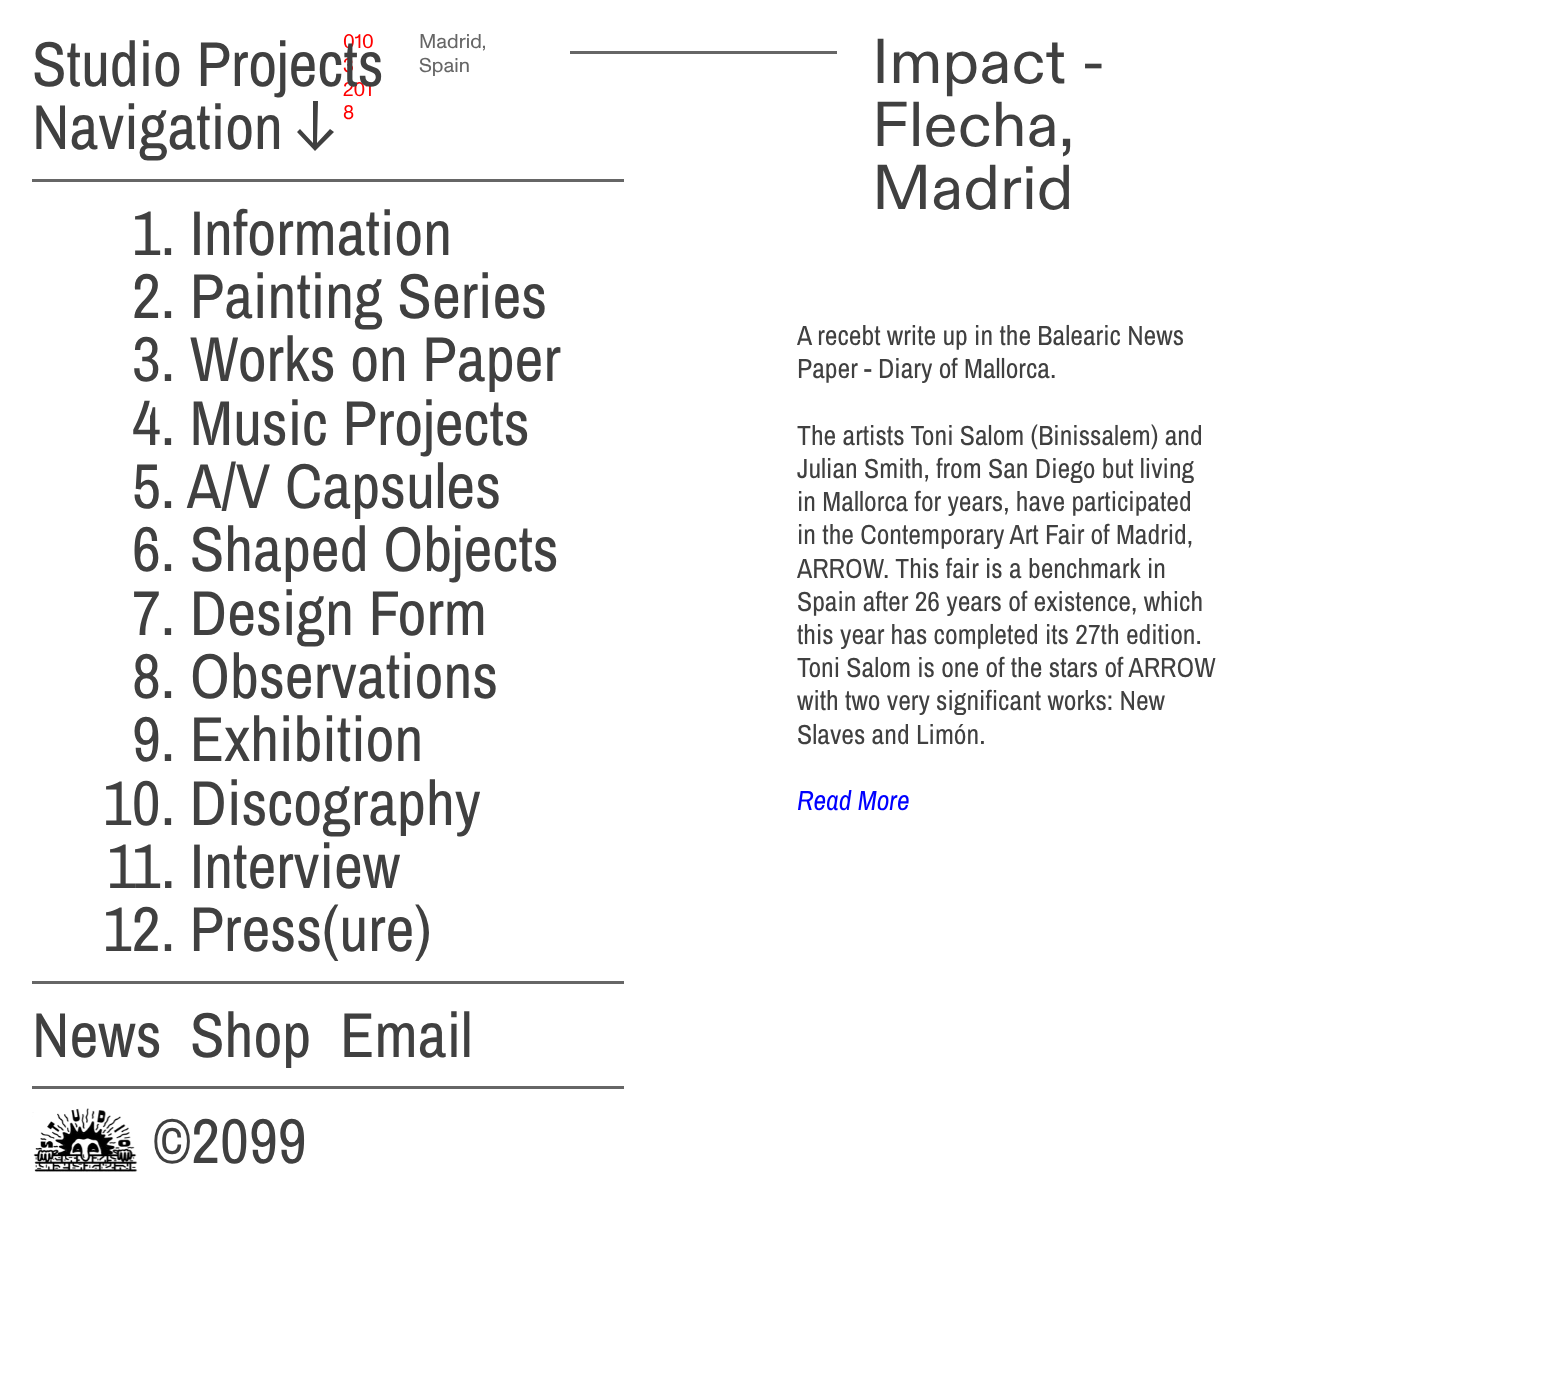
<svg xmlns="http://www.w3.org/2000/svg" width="1558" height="1374">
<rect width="100%" height="100%" fill="#fff"/>
<text x="343" y="48" style="font-family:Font;font-size:20px;fill:#f00">010</text>
<text x="343" y="72" style="font-family:Font;font-size:20px;fill:#f00">3</text>
<text x="343" y="96" style="font-family:Font;font-size:20px;fill:#f00">201</text>
<text x="32" y="86" style="font-family:Archivo Narrow;font-size:63.25px;fill:#404040">Studio Projects</text>
<text x="32" y="149" style="font-family:Archivo Narrow;font-size:63.25px;fill:#404040">Navigation</text>
<path d="M313 101v42l-13-14l-3 3l18 19l19-19l-4-3l-13 14l1-42z" fill="#404040"/>
<rect x="32" y="179" width="592" height="3" fill="#666"/>
<text x="132" y="255" style="font-family:Archivo Narrow;font-size:63.25px;fill:#404040">1. Information</text>
<text x="132" y="318" style="font-family:Archivo Narrow;font-size:63.25px;fill:#404040">2. Painting Series</text>
<text x="132" y="381" style="font-family:Archivo Narrow;font-size:63.25px;fill:#404040">3. Works on Paper</text>
<text x="132" y="445" style="font-family:Archivo Narrow;font-size:63.25px;fill:#404040">4. Music Projects</text>
<text x="132" y="508" style="font-family:Archivo Narrow;font-size:63.25px;fill:#404040">5. A/V Capsules</text>
<text x="132" y="571" style="font-family:Archivo Narrow;font-size:63.25px;fill:#404040">6. Shaped Objects</text>
<text x="132" y="635" style="font-family:Archivo Narrow;font-size:63.25px;fill:#404040">7. Design Form</text>
<text x="132" y="698" style="font-family:Archivo Narrow;font-size:63.25px;fill:#404040">8. Observations</text>
<text x="132" y="761" style="font-family:Archivo Narrow;font-size:63.25px;fill:#404040">9. Exhibition</text>
<text x="103" y="825" style="font-family:Archivo Narrow;font-size:63.25px;fill:#404040">10. Discography</text>
<text x="107" y="888" style="font-family:Archivo Narrow;font-size:63.25px;fill:#404040">11. Interview</text>
<text x="103" y="951" style="font-family:Archivo Narrow;font-size:63.25px;fill:#404040">12. Press(ure)</text>
<rect x="32" y="981" width="592" height="3" fill="#666"/>
<text x="32" y="1057" style="font-family:Archivo Narrow;font-size:63.25px;fill:#404040">News</text>
<text x="190" y="1057" style="font-family:Archivo Narrow;font-size:63.25px;fill:#404040">Shop</text>
<text x="340" y="1057" style="font-family:Archivo Narrow;font-size:63.25px;fill:#404040">Email</text>
<rect x="32" y="1086" width="592" height="3" fill="#666"/>
<image x="32" y="1108" width="106" height="64" href="media/1.png"/>
<text x="153" y="1163" style="font-family:Archivo Narrow;font-size:63.25px;fill:#404040">©2099</text>
<text x="343" y="119" style="font-family:Font;font-size:20px;fill:#f00">8</text>
<text x="419" y="48" style="font-family:Font;font-size:20px;fill:#666">Madrid,</text>
<text x="419" y="72" style="font-family:Font;font-size:20px;fill:#666">Spain</text>
<rect x="570" y="51" width="267" height="3" fill="#666"/>
<text x="872" y="83" style="font-family:'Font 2';font-size:63.25px;fill:#404040">Impact -</text>
<text x="872" y="146" style="font-family:'Font 2';font-size:63.25px;fill:#404040">Flecha,</text>
<text x="872" y="209" style="font-family:'Font 2';font-size:63.25px;fill:#404040">Madrid</text>
<text x="797" y="345" style="font-family:Archivo Narrow;font-size:27.75px;fill:#404040">A recebt write up in the Balearic News</text>
<text x="797" y="378" style="font-family:Archivo Narrow;font-size:27.75px;fill:#404040">Paper - Diary of Mallorca.</text>
<text x="797" y="445" style="font-family:Archivo Narrow;font-size:27.75px;fill:#404040">The artists Toni Salom (Binissalem) and</text>
<text x="797" y="478" style="font-family:Archivo Narrow;font-size:27.75px;fill:#404040">Julian Smith, from San Diego but living</text>
<text x="797" y="511" style="font-family:Archivo Narrow;font-size:27.75px;fill:#404040">in Mallorca for years, have participated</text>
<text x="797" y="544" style="font-family:Archivo Narrow;font-size:27.75px;fill:#404040">in the Contemporary Art Fair of Madrid,</text>
<text x="797" y="578" style="font-family:Archivo Narrow;font-size:27.75px;fill:#404040">ARROW. This fair is a benchmark in</text>
<text x="797" y="611" style="font-family:Archivo Narrow;font-size:27.75px;fill:#404040">Spain after 26 years of existence, which</text>
<text x="797" y="644" style="font-family:Archivo Narrow;font-size:27.75px;fill:#404040">this year has completed its 27th edition.</text>
<text x="797" y="677" style="font-family:Archivo Narrow;font-size:27.75px;fill:#404040">Toni Salom is one of the stars of ARROW</text>
<text x="797" y="710" style="font-family:Archivo Narrow;font-size:27.75px;fill:#404040">with two very significant works: New</text>
<text x="797" y="744" style="font-family:Archivo Narrow;font-size:27.75px;fill:#404040">Slaves and Limón.</text>
<text x="797" y="810" style="font-family:Archivo Narrow;font-size:27.75px;font-style:italic;fill:#00f">Read More</text>
</svg>
